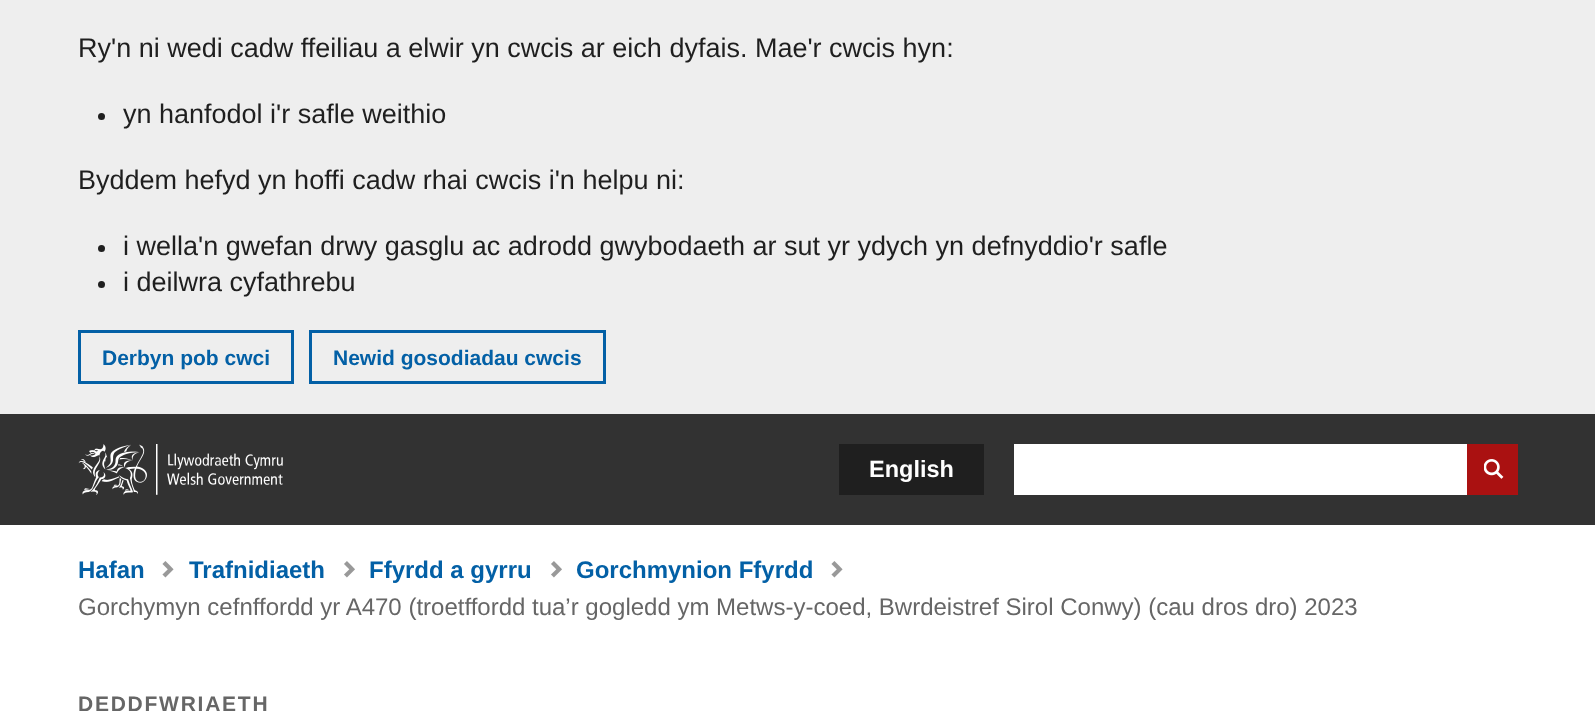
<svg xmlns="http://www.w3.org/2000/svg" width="1595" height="722">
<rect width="100%" height="100%" fill="#eee"/>
<text x="78" y="57" style="font-family:Liberation Sans;font-size:27px;fill:#1f1f1f">Ry'n ni wedi cadw ffeiliau a elwir yn cwcis ar eich dyfais. Mae'r cwcis hyn:</text>
<circle cx="101.5" cy="116.5" r="3.5" fill="#1f1f1f"/>
<text x="123" y="123" style="font-family:Liberation Sans;font-size:27px;fill:#1f1f1f">yn hanfodol i'r safle weithio</text>
<text x="78" y="189" style="font-family:Liberation Sans;font-size:27px;fill:#1f1f1f">Byddem hefyd yn hoffi cadw rhai cwcis i'n helpu ni:</text>
<circle cx="101.5" cy="248.5" r="3.5" fill="#1f1f1f"/>
<text x="123" y="255" style="font-family:Liberation Sans;font-size:27px;fill:#1f1f1f">i wella'n gwefan drwy gasglu ac adrodd gwybodaeth ar sut yr ydych yn defnyddio'r safle</text>
<circle cx="101.5" cy="284.5" r="3.5" fill="#1f1f1f"/>
<text x="123" y="291" style="font-family:Liberation Sans;font-size:27px;fill:#1f1f1f">i deilwra cyfathrebu</text>
<rect x="79.5" y="331.5" width="213" height="51" fill="none" stroke="#0360a6" stroke-width="3"/>
<text x="102" y="365" style="font-family:Liberation Sans;font-size:21px;font-weight:bold;fill:#0360a6">Derbyn pob cwci</text>
<rect x="310.5" y="331.5" width="294" height="51" fill="none" stroke="#0360a6" stroke-width="3"/>
<text x="333" y="365" style="font-family:Liberation Sans;font-size:21px;font-weight:bold;fill:#0360a6">Newid gosodiadau cwcis</text>
<rect y="414" width="1595" height="111" fill="#323232"/>
<image x="78" y="444" width="205" height="51" href="media/1.png"/>
<rect x="839" y="444" width="145" height="51" fill="#1f1f1f"/>
<text x="869" y="477" style="font-family:Liberation Sans;font-size:23.5px;font-weight:bold;fill:#fff">English</text>
<rect x="1014" y="444" width="453" height="51" fill="#fff"/>
<rect x="1467" y="444" width="51" height="51" fill="#a11"/>
<image x="1484" y="459" width="20" height="20" href="media/2.png"/>
<rect y="525" width="1595" height="197" fill="#fff"/>
<image x="162" y="561" width="12" height="17" href="media/3.png"/>
<text x="78" y="578" style="font-family:Liberation Sans;font-size:24px;font-weight:bold;fill:#0360a6">Hafan</text>
<image x="344" y="561" width="11" height="17" href="media/4.png"/>
<text x="189" y="578" style="font-family:Liberation Sans;font-size:24px;font-weight:bold;fill:#0360a6">Trafnidiaeth</text>
<image x="551" y="561" width="11" height="17" href="media/4.png"/>
<text x="369" y="578" style="font-family:Liberation Sans;font-size:24px;font-weight:bold;fill:#0360a6">Ffyrdd a gyrru</text>
<image x="831" y="561" width="12" height="17" href="media/3.png"/>
<text x="576" y="578" style="font-family:Liberation Sans;font-size:24px;font-weight:bold;fill:#0360a6">Gorchmynion Ffyrdd</text>
<text x="78" y="615" style="font-family:Liberation Sans;font-size:24px;fill:#666">Gorchymyn cefnffordd yr A470 (troetffordd tua’r gogledd ym Metws-y-coed, Bwrdeistref Sirol Conwy) (cau dros dro) 2023</text>
<text x="78" y="711" style="font-family:Liberation Sans;font-size:21px;font-weight:bold;letter-spacing:1.75px;fill:#666">DEDDFWRIAETH</text>
</svg>
